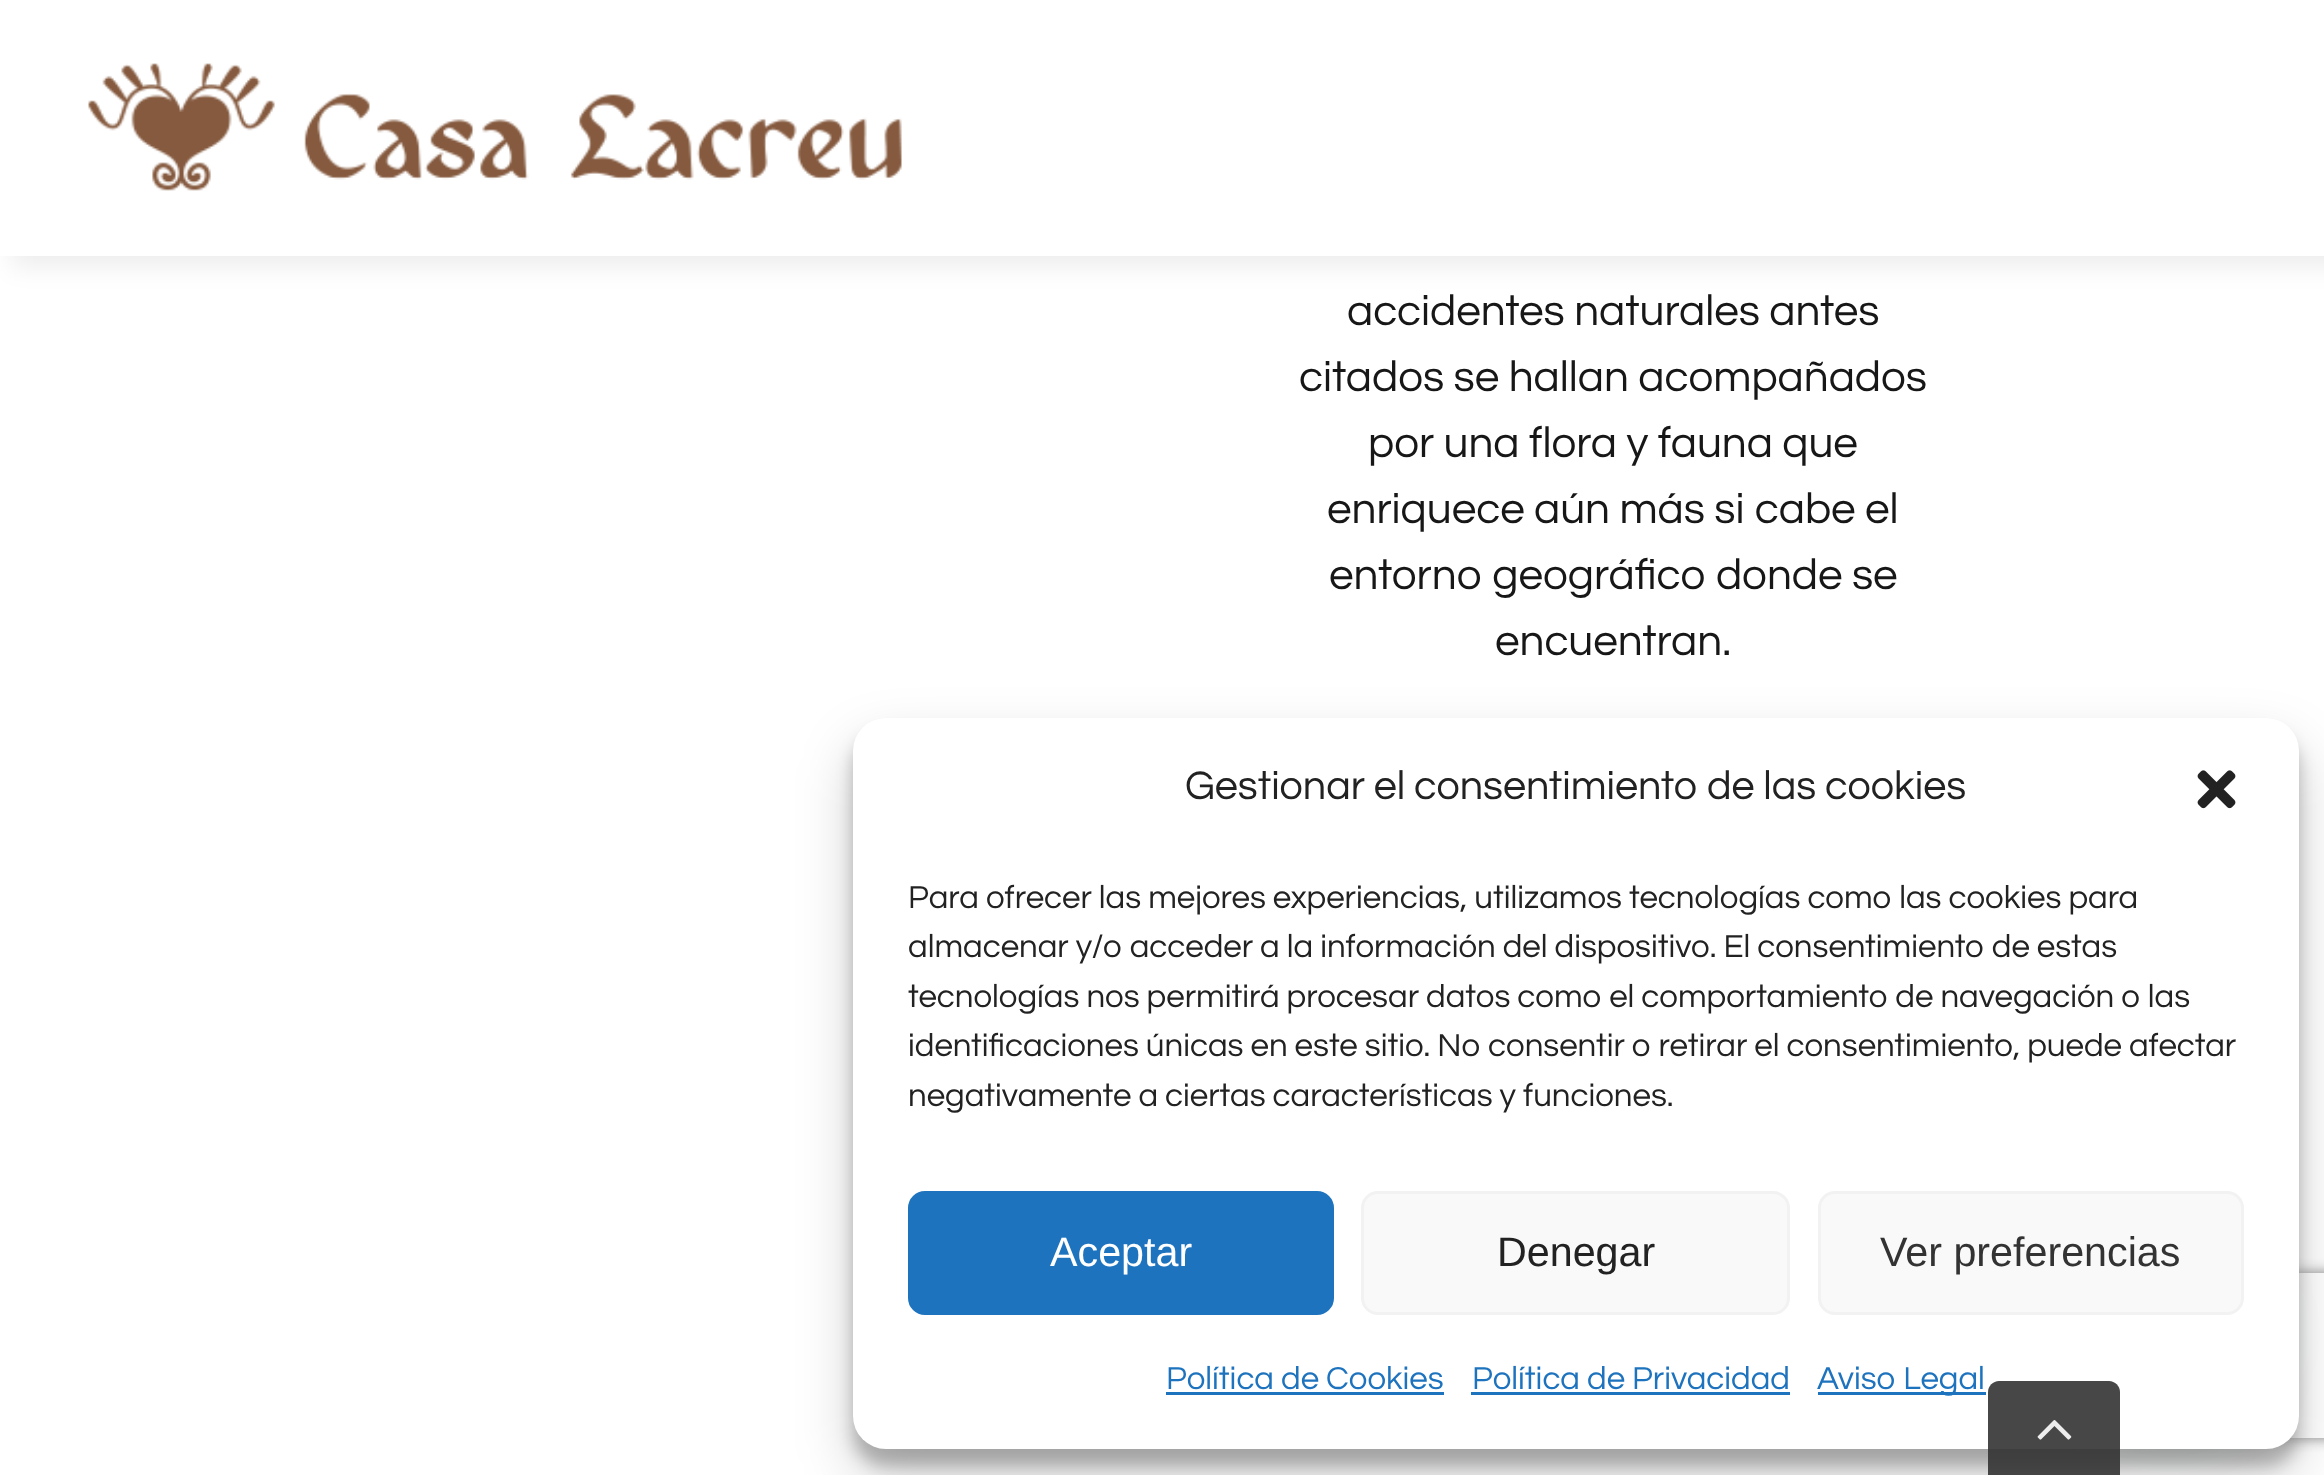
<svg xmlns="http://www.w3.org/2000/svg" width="2324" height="1475">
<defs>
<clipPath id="clip1"><path d="M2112 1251h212v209h-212zm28 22h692c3.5 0 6 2.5 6 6v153c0 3.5-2.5 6-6 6h-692c-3.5 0-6-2.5-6-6v-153c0-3.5 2.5-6 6-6z" clip-rule="evenodd"/></clipPath>
</defs>
<rect width="100%" height="100%" fill="#fff"/>
<rect x="11" y="-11" width="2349" height="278" fill="#00000012" filter="blur(12.5px)"/>
<rect width="2324" height="256" fill="#fff"/>
<image x="88" y="63" width="814" height="128" href="media/1.png"/>
<text x="1347" y="325" style="font-family:Questrial;font-size:44px;fill:#171717">accidentes naturales antes</text>
<text x="1299" y="391" style="font-family:Questrial;font-size:44px;fill:#171717">citados se hallan acompañados</text>
<text x="1368" y="457" style="font-family:Questrial;font-size:44px;fill:#171717">por una flora y fauna que</text>
<text x="1327" y="523" style="font-family:Questrial;font-size:44px;fill:#171717">enriquece aún más si cabe el</text>
<text x="1329" y="589" style="font-family:Questrial;font-size:44px;fill:#171717">entorno geográfico donde se</text>
<text x="1495" y="655" style="font-family:Questrial;font-size:44px;fill:#171717">encuentran.</text>
<rect x="853" y="734" width="1446" height="732" rx="33" fill="#0000003b" filter="blur(8px)"/>
<rect x="853" y="745" width="1446" height="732" rx="33" fill="#00000030" filter="blur(27.5px)"/>
<rect x="2087" y="1251" width="165" height="165" rx="82.5" fill="#075e543d" filter="blur(33px)"/>
<g clip-path="url(#clip1)">
<rect x="2134" y="1273" width="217" height="165" rx="6" fill="#808080" filter="blur(7px)"/>
</g>
<rect x="853" y="718" width="1446" height="731" rx="33" fill="#fff"/>
<text x="1185" y="799" style="font-family:Questrial;font-size:41.25px;fill:#222">Gestionar el consentimiento de las cookies</text>
<image x="2197" y="770" width="39" height="39" href="media/2.png"/>
<text x="908" y="908" style="font-family:Questrial;font-size:33px;fill:#222">Para ofrecer las mejores experiencias, utilizamos tecnologías como las cookies para</text>
<text x="908" y="957" style="font-family:Questrial;font-size:33px;fill:#222">almacenar y/o acceder a la información del dispositivo. El consentimiento de estas</text>
<text x="908" y="1007" style="font-family:Questrial;font-size:33px;fill:#222">tecnologías nos permitirá procesar datos como el comportamiento de navegación o las</text>
<text x="908" y="1056" style="font-family:Questrial;font-size:33px;fill:#222">identificaciones únicas en este sitio. No consentir o retirar el consentimiento, puede afectar</text>
<text x="908" y="1106" style="font-family:Questrial;font-size:33px;fill:#222">negativamente a ciertas características y funciones.</text>
<rect x="909.5" y="1192.5" width="423" height="121" rx="15.5" fill="#1e73be" stroke="#1e73be" stroke-width="3"/>
<text x="1050" y="1266" style="font-family:Liberation Sans;font-size:41.25px;fill:#fff">Aceptar</text>
<rect x="1362.5" y="1192.5" width="426" height="121" rx="15.5" fill="#f9f9f9" stroke="#f2f2f2" stroke-width="3"/>
<text x="1497" y="1266" style="font-family:Liberation Sans;font-size:41.25px;fill:#222">Denegar</text>
<rect x="1819.5" y="1192.5" width="423" height="121" rx="15.5" fill="#f9f9f9" stroke="#f2f2f2" stroke-width="3"/>
<text x="1880" y="1266" style="font-family:Liberation Sans;font-size:41.25px;fill:#333">Ver preferencias</text>
<text x="1166" y="1389" style="font-family:Questrial;font-size:33px;fill:#1e73be">Política de Cookies</text>
<rect x="1166" y="1392" width="278" height="3" fill="#1e73be"/>
<text x="1472" y="1389" style="font-family:Questrial;font-size:33px;fill:#1e73be">Política de Privacidad</text>
<rect x="1471" y="1392" width="319" height="3" fill="#1e73be"/>
<rect x="1818" y="1392" width="168" height="3" fill="#1e73be"/>
<text x="1817" y="1389" style="font-family:Questrial;font-size:33px;fill:#1e73be">Aviso Legal</text>
<path d="M1999 1381h110c6 0 11 5 11 11v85h-132v-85c0-6 5-11 11-11z" fill="#333333e6"/>
<image x="2037" y="1420" width="35" height="20" href="media/3.png"/>
</svg>
